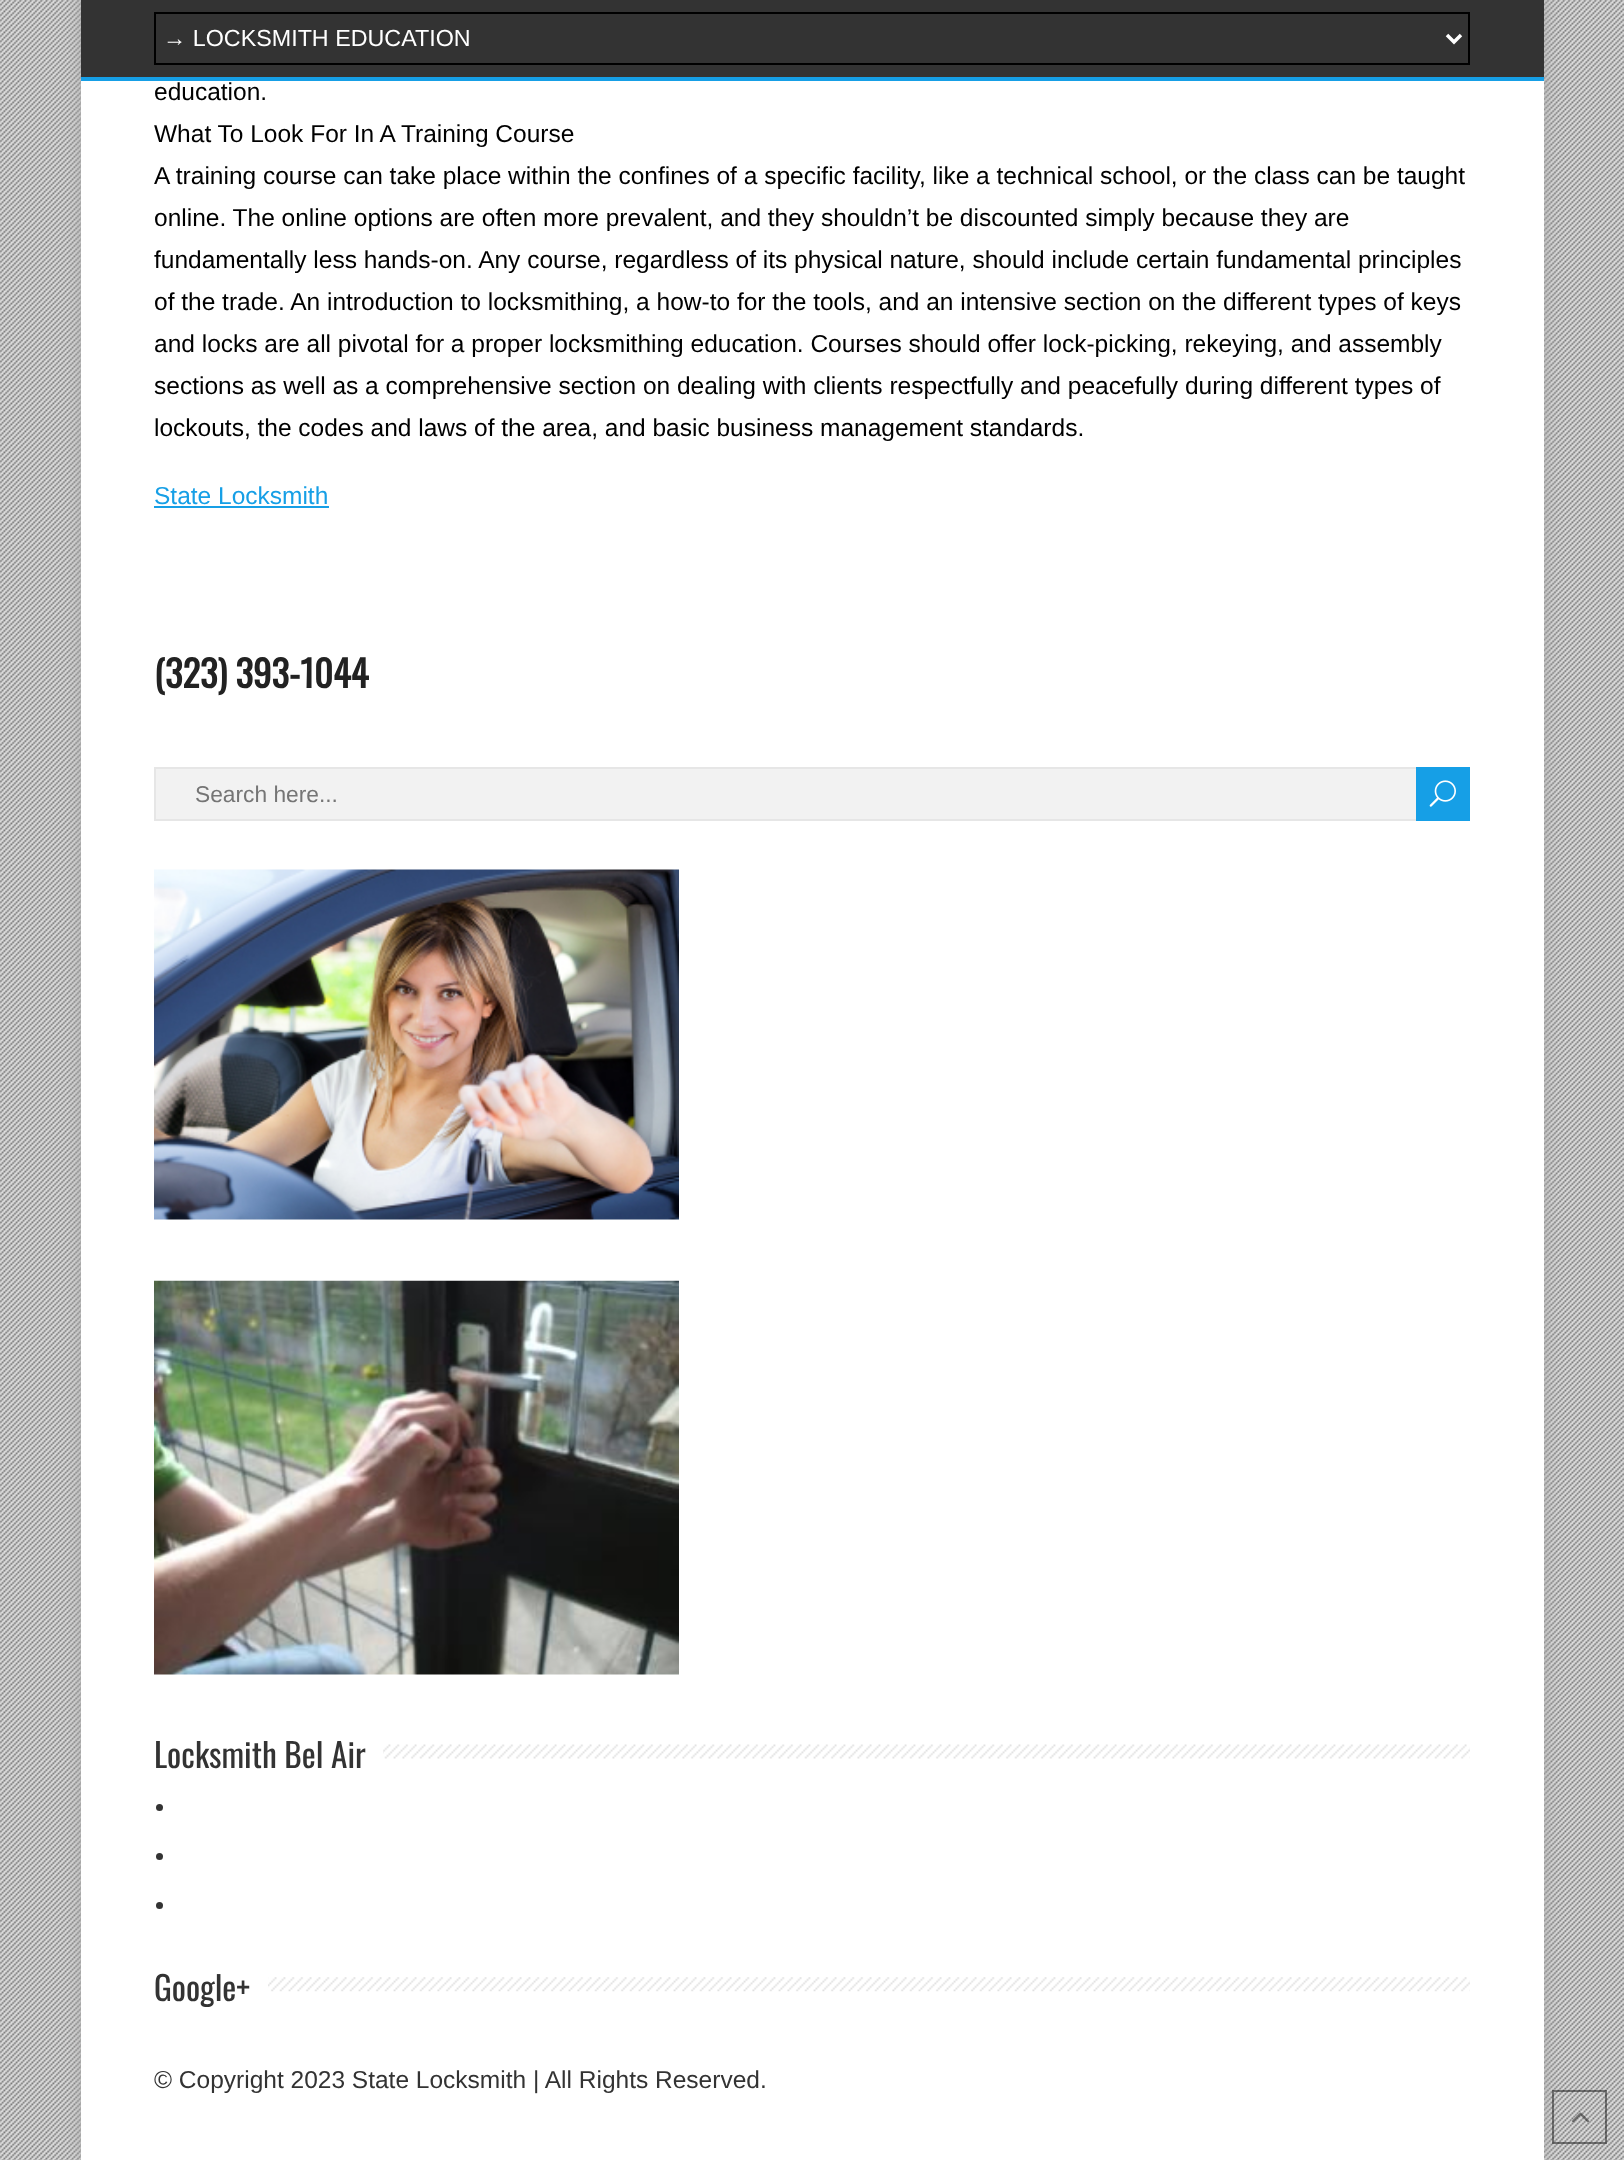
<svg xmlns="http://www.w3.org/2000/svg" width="1624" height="2160">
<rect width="100%" height="100%" fill="#dedede"/>
<image x="0" y="0" width="1624" height="2160" href="media/1.png"/>
<rect x="81" y="-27" width="1463" height="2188" fill="#aaa" filter="blur(9px)"/>
<rect x="81" y="81" width="1463" height="2079" fill="#fff"/>
<rect x="81" width="1463" height="77" fill="#333"/>
<rect x="81" y="77" width="1463" height="4" fill="#169fe6"/>
<rect x="155" y="13" width="1314" height="51" fill="none" stroke="#000" stroke-width="2"/>
<path d="M1447 35l7 7l7-7" fill="none" stroke="#fff" stroke-width="3.5"/>
<text x="163" y="46" style="font-family:Liberation Sans;font-size:23.3px;fill:#fff">→ LOCKSMITH EDUCATION</text>
<text x="154" y="100" style="font-family:Liberation Sans;font-size:24.5px;fill:#000">education.</text>
<text x="154" y="142" style="font-family:Liberation Sans;font-size:24.5px;fill:#000">What To Look For In A Training Course</text>
<text x="154" y="184" style="font-family:Liberation Sans;font-size:24.5px;fill:#000">A training course can take place within the confines of a specific facility, like a technical school, or the class can be taught</text>
<text x="154" y="226" style="font-family:Liberation Sans;font-size:24.5px;fill:#000">online. The online options are often more prevalent, and they shouldn’t be discounted simply because they are</text>
<text x="154" y="268" style="font-family:Liberation Sans;font-size:24.5px;fill:#000">fundamentally less hands-on. Any course, regardless of its physical nature, should include certain fundamental principles</text>
<text x="154" y="310" style="font-family:Liberation Sans;font-size:24.5px;fill:#000">of the trade. An introduction to locksmithing, a how-to for the tools, and an intensive section on the different types of keys</text>
<text x="154" y="352" style="font-family:Liberation Sans;font-size:24.5px;fill:#000">and locks are all pivotal for a proper locksmithing education. Courses should offer lock-picking, rekeying, and assembly</text>
<text x="154" y="394" style="font-family:Liberation Sans;font-size:24.5px;fill:#000">sections as well as a comprehensive section on dealing with clients respectfully and peacefully during different types of</text>
<text x="154" y="436" style="font-family:Liberation Sans;font-size:24.5px;fill:#000">lockouts, the codes and laws of the area, and basic business management standards.</text>
<text x="154" y="504" style="font-family:Liberation Sans;font-size:24.5px;fill:#169fe6">State Locksmith</text>
<rect x="154" y="506" width="175" height="2" fill="#169fe6"/>
<text x="154" y="688" style="font-family:Oswald;font-size:36.75px;font-weight:bold;fill:#222">(323) 393-1044</text>
<rect x="156" y="769" width="1260" height="50" fill="#f2f2f2"/>
<rect x="155" y="768" width="1304" height="52" fill="none" stroke="#e6e6e6" stroke-width="2"/>
<text x="195" y="802" style="font-family:Liberation Sans;font-size:22.75px;fill:#757575">Search here...</text>
<rect x="1416" y="767" width="54" height="54" fill="#169fe6"/>
<image x="1429" y="780" width="27" height="27" href="media/2.png"/>
<image x="154" y="869" width="525" height="351" href="media/3.png"/>
<image x="154" y="1280" width="525" height="395" href="media/4.png"/>
<image x="383" y="1744" width="1087" height="15" href="media/5.png"/>
<text x="154" y="1768" style="font-family:Oswald;font-size:33.25px;fill:#333">Locksmith Bel Air</text>
<circle cx="159.5" cy="1807.5" r="3.5" fill="#333"/>
<circle cx="159.5" cy="1856.5" r="3.5" fill="#333"/>
<circle cx="159.5" cy="1905.5" r="3.5" fill="#333"/>
<image x="268" y="1977" width="1202" height="15" href="media/6.png"/>
<text x="154" y="2001" style="font-family:Oswald;font-size:33.25px;fill:#333">Google+</text>
<text x="154" y="2088" style="font-family:Liberation Sans;font-size:24.5px;fill:#333">© Copyright 2023 State Locksmith | All Rights Reserved.</text>
<rect x="1553" y="2091" width="53" height="52" fill="none" stroke="#11111180" stroke-width="2"/>
<image x="1572" y="2112" width="17" height="11" href="media/7.png"/>
</svg>
